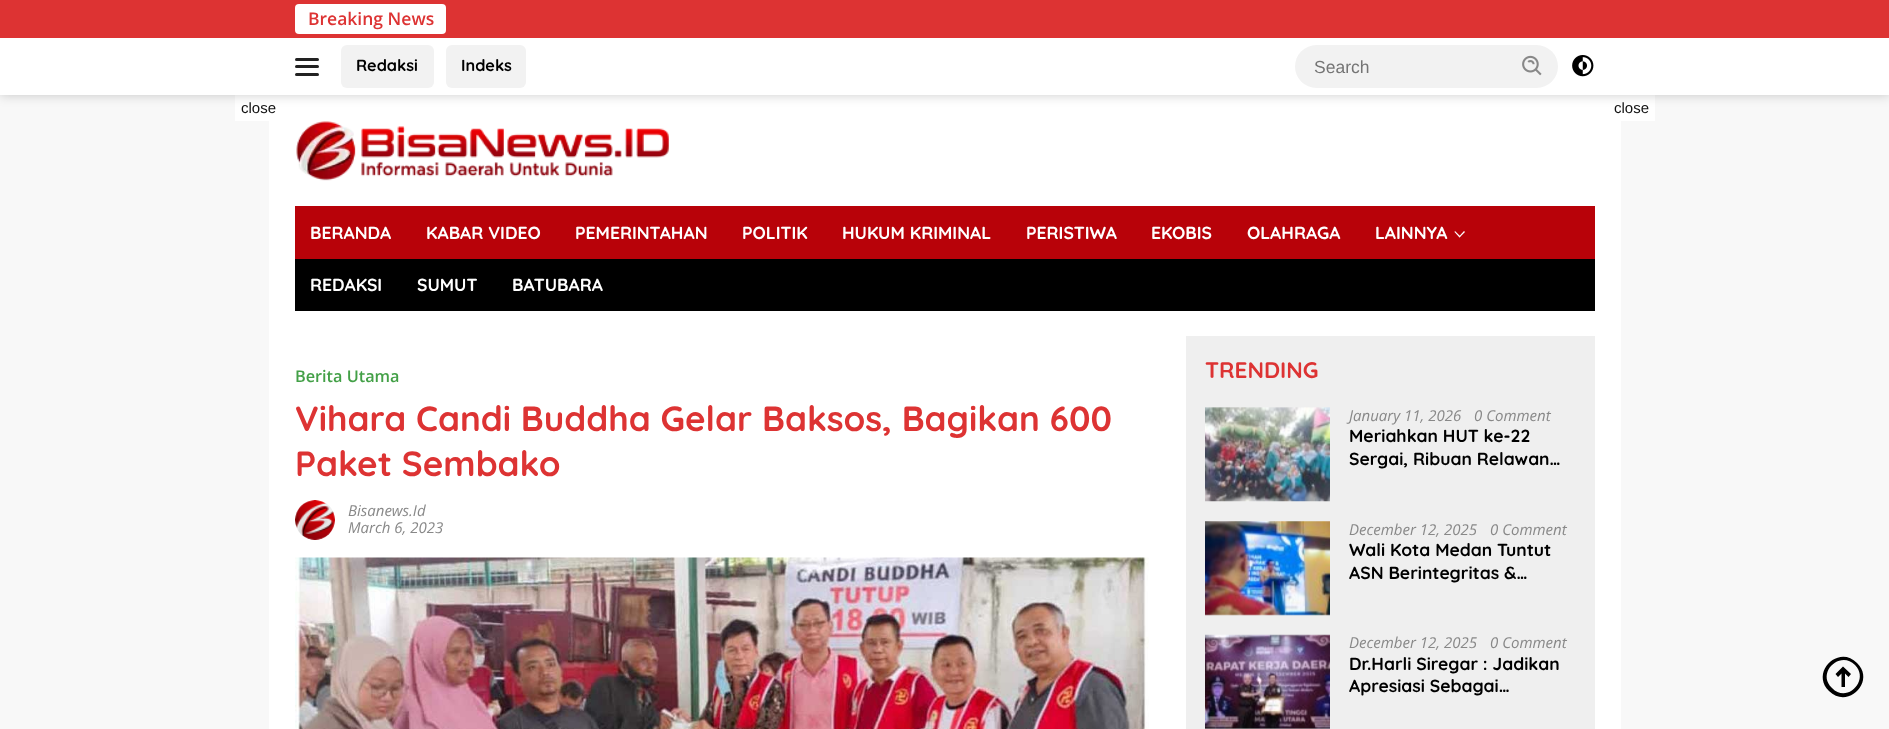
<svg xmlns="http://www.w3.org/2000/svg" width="1889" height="729">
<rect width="100%" height="100%" fill="#f8f8f8"/>
<rect x="269" y="95" width="1352" height="634" fill="#fff"/>
<rect x="235" y="95" width="34" height="26" fill="#fff"/>
<rect x="1621" y="95" width="34" height="26" fill="#fff"/>
<rect width="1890" height="95" fill="#00000033" filter="blur(6px)"/>
<rect y="38" width="1889" height="57" fill="#fff"/>
<rect width="1889" height="38" fill="#d33"/>
<rect x="295" y="4" width="151" height="30" rx="4" fill="#fff"/>
<text x="308" y="25" style="font-family:Open Sans;font-size:17.5px;font-weight:600;fill:#d33">Breaking News</text>
<rect x="295" y="58" width="24" height="3" rx="1.5" fill="#222"/>
<rect x="295" y="65" width="24" height="3" rx="1.5" fill="#222"/>
<rect x="295" y="73" width="24" height="3" rx="1.5" fill="#222"/>
<rect x="341" y="45" width="93" height="43" rx="6" fill="#f2f2f2"/>
<text x="356" y="71" style="font-family:Quicksand;font-size:16.25px;font-weight:bold;fill:#000">Redaksi</text>
<rect x="446" y="45" width="80" height="43" rx="6" fill="#f2f2f2"/>
<text x="461" y="71" style="font-family:Quicksand;font-size:16.25px;font-weight:bold;fill:#000">Indeks</text>
<rect x="1295" y="45" width="263" height="43" rx="21.5" fill="#f2f2f2"/>
<text x="1314" y="73" style="font-family:Liberation Sans;font-size:17.5px;fill:#757575">Search</text>
<image x="1522" y="55" width="20" height="21" href="media/1.png"/>
<image x="1572" y="55" width="22" height="22" href="media/2.png"/>
<text x="241" y="113" style="font-family:Liberation Sans;font-size:15px;fill:#111">close</text>
<text x="1614" y="113" style="font-family:Liberation Sans;font-size:15px;fill:#111">close</text>
<image x="296" y="121" width="373" height="60" href="media/3.png"/>
<rect x="295" y="259" width="1300" height="52" fill="#000"/>
<rect x="295" y="206" width="1300" height="53" fill="#b80209"/>
<text x="310" y="239" style="font-family:Quicksand;font-size:17.5px;font-weight:bold;fill:#fff">BERANDA</text>
<text x="426" y="239" style="font-family:Quicksand;font-size:17.5px;font-weight:bold;fill:#fff">KABAR VIDEO</text>
<text x="575" y="239" style="font-family:Quicksand;font-size:17.5px;font-weight:bold;fill:#fff">PEMERINTAHAN</text>
<text x="742" y="239" style="font-family:Quicksand;font-size:17.5px;font-weight:bold;fill:#fff">POLITIK</text>
<text x="842" y="239" style="font-family:Quicksand;font-size:17.5px;font-weight:bold;fill:#fff">HUKUM KRIMINAL</text>
<text x="1026" y="239" style="font-family:Quicksand;font-size:17.5px;font-weight:bold;fill:#fff">PERISTIWA</text>
<text x="1151" y="239" style="font-family:Quicksand;font-size:17.5px;font-weight:bold;fill:#fff">EKOBIS</text>
<text x="1247" y="239" style="font-family:Quicksand;font-size:17.5px;font-weight:bold;fill:#fff">OLAHRAGA</text>
<text x="1375" y="239" style="font-family:Quicksand;font-size:17.5px;font-weight:bold;fill:#fff">LAINNYA</text>
<path d="M1464 231l1 1l-5.5 5.5l-.5-1z" fill="#fff"/>
<path d="M1455 231l5.5 5.5l-1 1l-5-5.5z" fill="#fff"/>
<text x="310" y="291" style="font-family:Quicksand;font-size:17.5px;font-weight:bold;fill:#fff">REDAKSI</text>
<text x="417" y="291" style="font-family:Quicksand;font-size:17.5px;font-weight:bold;fill:#fff">SUMUT</text>
<text x="512" y="291" style="font-family:Quicksand;font-size:17.5px;font-weight:bold;fill:#fff">BATUBARA</text>
<text x="295" y="382" style="font-family:Open Sans;font-size:16.25px;font-weight:600;fill:#43a047">Berita Utama</text>
<text x="295" y="431" style="font-family:Quicksand;font-size:35px;font-weight:bold;fill:#d33">Vihara Candi Buddha Gelar Baksos, Bagikan 600</text>
<text x="295" y="476" style="font-family:Quicksand;font-size:35px;font-weight:bold;fill:#d33">Paket Sembako</text>
<image x="295" y="500" width="40" height="40" href="media/4.png"/>
<text x="348" y="516" style="font-family:Open Sans;font-size:15px;font-style:italic;fill:#888">Bisanews.Id</text>
<text x="348" y="533" style="font-family:Open Sans;font-size:15px;font-style:italic;fill:#888">March 6, 2023</text>
<image x="295" y="557" width="854" height="172" href="media/5.png"/>
<rect x="1186" y="336" width="409" height="393" fill="#efefef"/>
<text x="1205" y="378" style="font-family:Quicksand;font-size:22.5px;font-weight:bold;fill:#d33">TRENDING</text>
<image x="1205" y="407" width="125" height="95" href="media/6.png"/>
<text x="1349" y="421" style="font-family:Open Sans;font-size:15px;font-style:italic;fill:#888">January 11, 2026</text>
<text x="1474" y="421" style="font-family:Open Sans;font-size:15px;font-style:italic;fill:#888">0 Comment</text>
<text x="1349" y="442" style="font-family:Quicksand;font-size:17.5px;font-weight:bold;fill:#000">Meriahkan HUT ke-22</text>
<text x="1349" y="465" style="font-family:Quicksand;font-size:17.5px;font-weight:bold;fill:#000">Sergai, Ribuan Relawan…</text>
<image x="1205" y="521" width="125" height="95" href="media/7.png"/>
<text x="1349" y="535" style="font-family:Open Sans;font-size:15px;font-style:italic;fill:#888">December 12, 2025</text>
<text x="1490" y="535" style="font-family:Open Sans;font-size:15px;font-style:italic;fill:#888">0 Comment</text>
<text x="1349" y="556" style="font-family:Quicksand;font-size:17.5px;font-weight:bold;fill:#000">Wali Kota Medan Tuntut</text>
<text x="1349" y="579" style="font-family:Quicksand;font-size:17.5px;font-weight:bold;fill:#000">ASN Berintegritas &amp;…</text>
<image x="1205" y="634" width="125" height="95" href="media/8.png"/>
<text x="1349" y="648" style="font-family:Open Sans;font-size:15px;font-style:italic;fill:#888">December 12, 2025</text>
<text x="1490" y="648" style="font-family:Open Sans;font-size:15px;font-style:italic;fill:#888">0 Comment</text>
<text x="1349" y="670" style="font-family:Quicksand;font-size:17.5px;font-weight:bold;fill:#000">Dr.Harli Siregar : Jadikan</text>
<text x="1349" y="692" style="font-family:Quicksand;font-size:17.5px;font-weight:bold;fill:#000">Apresiasi Sebagai…</text>
<path d="M1848.5 677l2.5-3l-8-7.5l-7.5 7.5l2.5 3l3.5-3.5v13.5h3.5v-13.5z" fill="#000"/>
<path d="M1857 663c-18-19-47 9-28 28c19 19 47-10 28-28zm-2 2c-15-15-39 8-23 23c15 16 38-8 23-23z" fill="#000" fill-rule="evenodd"/>
</svg>
